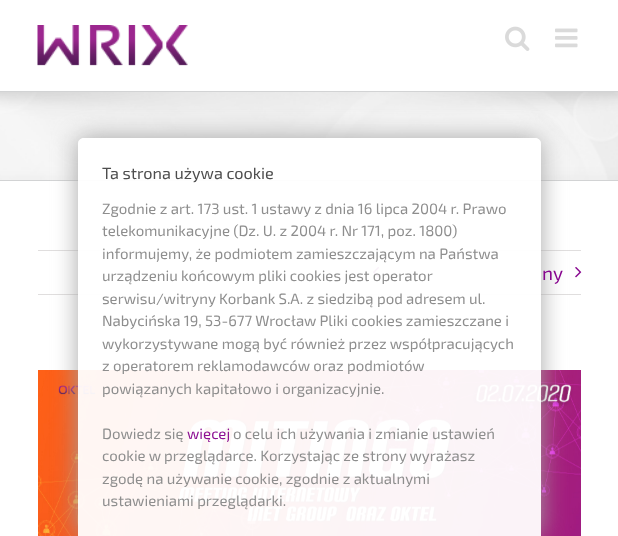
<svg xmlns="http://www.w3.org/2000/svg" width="618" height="536">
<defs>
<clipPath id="clip1"><path d="M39 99h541v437h-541zm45 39h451c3.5 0 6 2.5 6 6v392h-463v-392c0-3.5 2.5-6 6-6z" clip-rule="evenodd"/></clipPath>
</defs>
<rect width="100%" height="100%" fill="#fff"/>
<rect y="92" width="618" height="88" fill="#f6f6f6"/>
<image x="0" y="92" width="618" height="88" href="media/4.png"/>
<rect y="180" width="618" height="1" fill="#d2d3d4"/>
<rect x="38" y="250" width="543" height="1" fill="#e0dede"/>
<rect x="38" y="294" width="543" height="1" fill="#e0dede"/>
<image x="373" y="267" width="6" height="11" href="media/5.png"/>
<image x="575" y="267" width="7" height="11" href="media/6.png"/>
<image x="38" y="370" width="543" height="166" href="media/7.png"/>
<g clip-path="url(#clip1)">
<rect x="78" y="138" width="463" height="398" rx="6" fill="#a1a1a1f2" filter="blur(12.5px)"/>
</g>
<path d="M84 138h451c3.5 0 6 2.5 6 6v392h-463v-392c0-3.5 2.5-6 6-6z" fill="#fffffff2"/>
<text x="102" y="179" style="font-family:'Exo 2';font-size:16.25px;fill:#4d4d4d">Ta strona używa cookie</text>
<text x="102" y="214" style="font-family:'Exo 2';font-size:15px;fill:#8e8e8e">Zgodnie z art. 173 ust. 1 ustawy z dnia 16 lipca 2004 r. Prawo</text>
<text x="102" y="236" style="font-family:'Exo 2';font-size:15px;fill:#8e8e8e">telekomunikacyjne (Dz. U. z 2004 r. Nr 171, poz. 1800)</text>
<text x="102" y="259" style="font-family:'Exo 2';font-size:15px;fill:#8e8e8e">informujemy, że podmiotem zamieszczającym na Państwa</text>
<text x="102" y="281" style="font-family:'Exo 2';font-size:15px;fill:#8e8e8e">urządzeniu końcowym pliki cookies jest operator</text>
<text x="102" y="304" style="font-family:'Exo 2';font-size:15px;fill:#8e8e8e">serwisu/witryny Korbank S.A. z siedzibą pod adresem ul.</text>
<text x="102" y="326" style="font-family:'Exo 2';font-size:15px;fill:#8e8e8e">Nabycińska 19, 53-677 Wrocław Pliki cookies zamieszczane i</text>
<text x="102" y="349" style="font-family:'Exo 2';font-size:15px;fill:#8e8e8e">wykorzystywane mogą być również przez współpracujących</text>
<text x="102" y="371" style="font-family:'Exo 2';font-size:15px;fill:#8e8e8e">z operatorem reklamodawców oraz podmiotów</text>
<text x="102" y="394" style="font-family:'Exo 2';font-size:15px;fill:#8e8e8e">powiązanych kapitałowo i organizacyjnie.</text>
<text x="102" y="439" style="font-family:'Exo 2';font-size:15px;fill:#8e8e8e">Dowiedz się</text>
<text x="187" y="439" style="font-family:'Exo 2';font-size:15px;fill:#8d1193">więcej</text>
<text x="233" y="439" style="font-family:'Exo 2';font-size:15px;fill:#8e8e8e">o celu ich używania i zmianie ustawień</text>
<text x="102" y="461" style="font-family:'Exo 2';font-size:15px;fill:#8e8e8e">cookie w przeglądarce. Korzystając ze strony wyrażasz</text>
<text x="102" y="484" style="font-family:'Exo 2';font-size:15px;fill:#8e8e8e">zgodę na używanie cookie, zgodnie z aktualnymi</text>
<text x="102" y="506" style="font-family:'Exo 2';font-size:15px;fill:#8e8e8e">ustawieniami przeglądarki.</text>
<image x="37" y="25" width="151" height="41" href="media/1.png"/>
<image x="505" y="26" width="25" height="25" href="media/2.png"/>
<image x="555" y="28" width="23" height="20" href="media/3.png"/>
<rect y="91" width="618" height="1" fill="#d2d3d4"/>
<text x="542" y="280" style="font-family:'Exo 2';font-size:19px;fill:#87058e">ny</text>
</svg>
